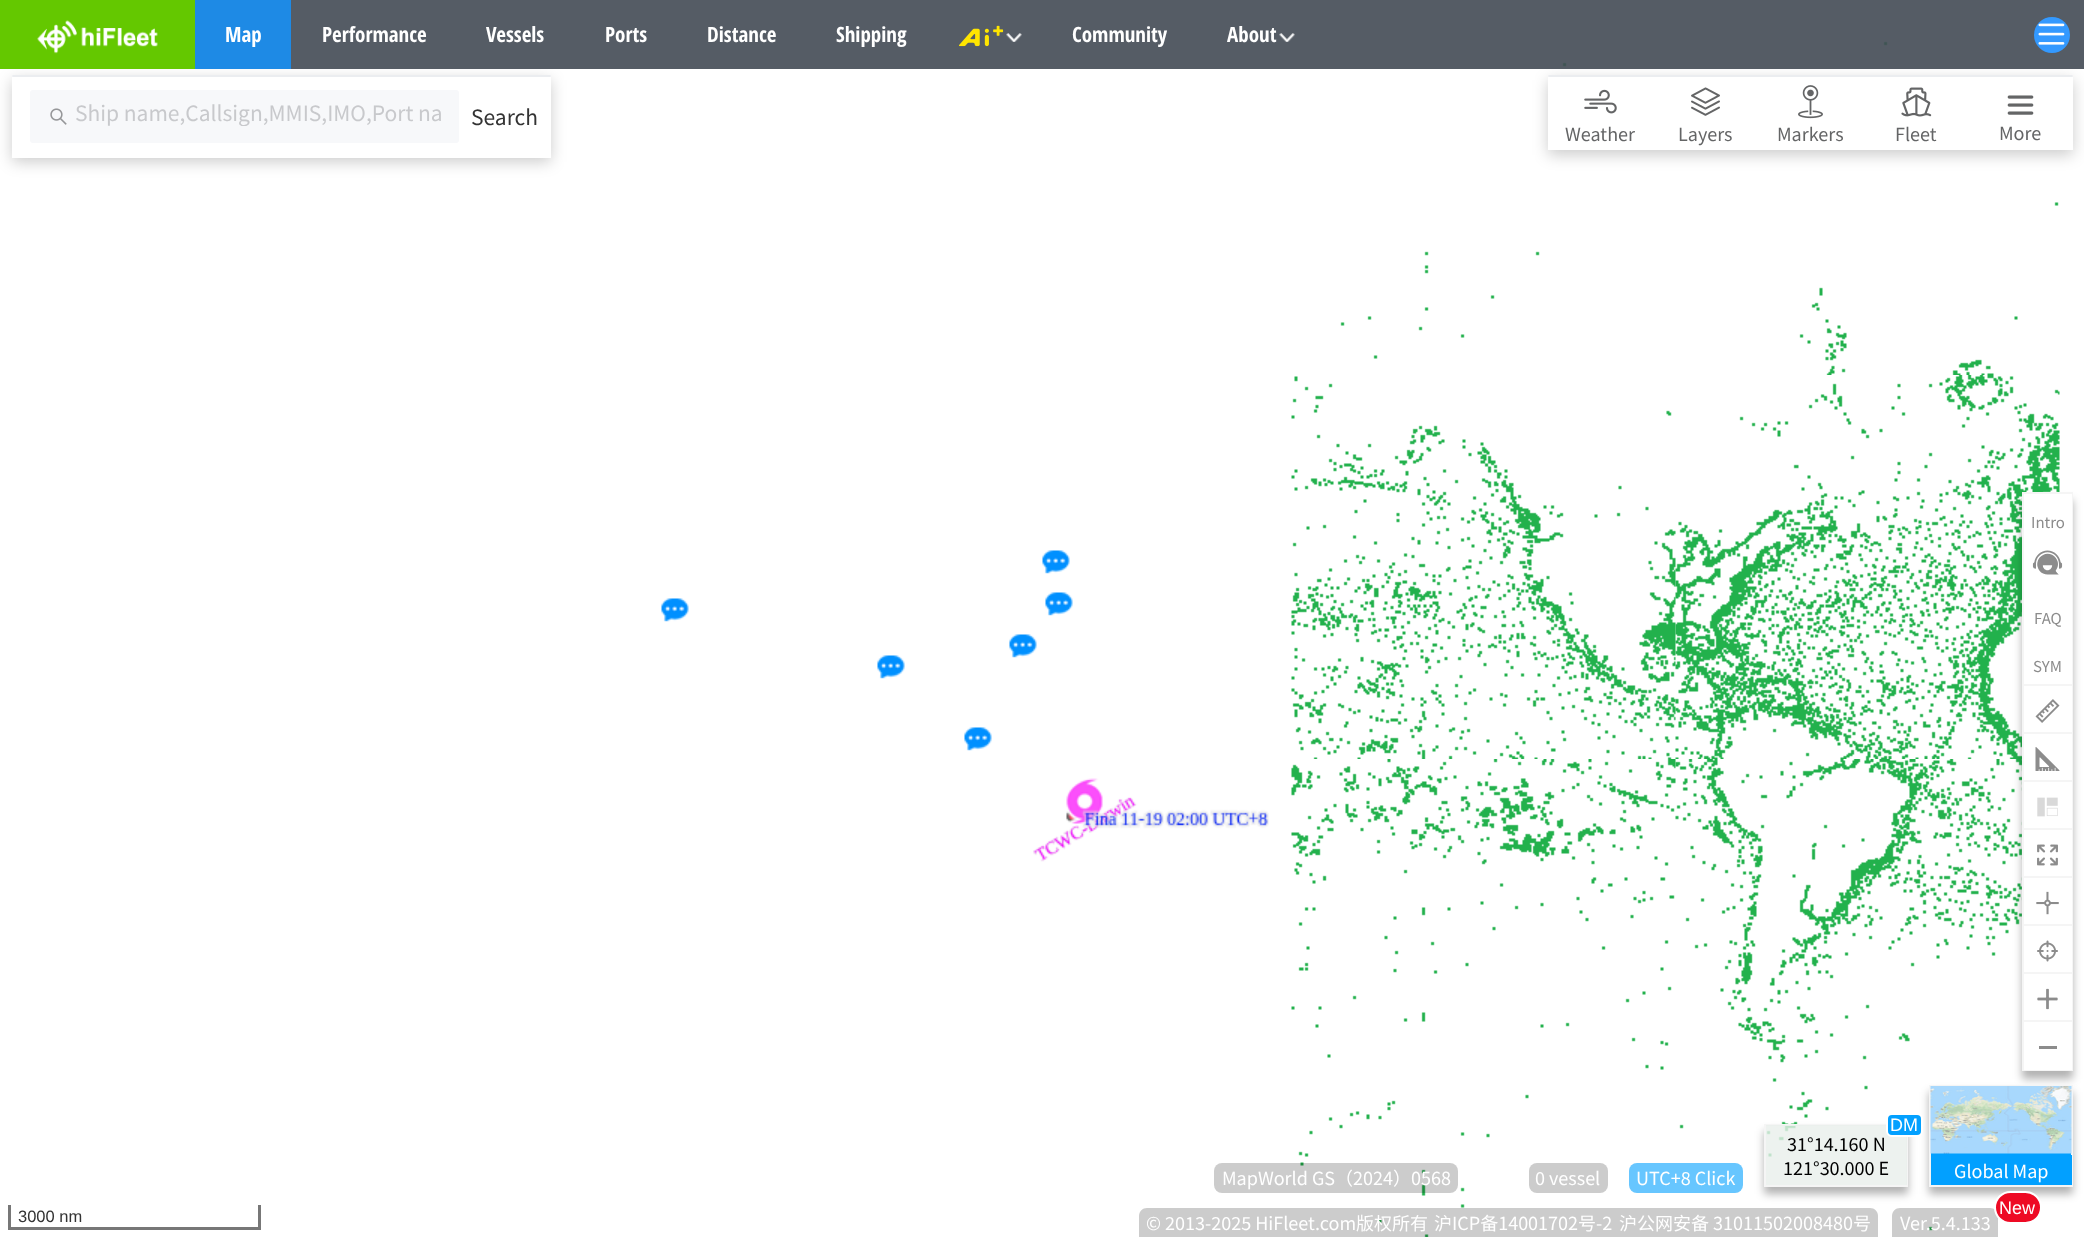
<svg xmlns="http://www.w3.org/2000/svg" width="2084" height="1237">
<defs>
<clipPath id="clip1"><rect x="75" y="98" width="372" height="28"/></clipPath>
<clipPath id="clip2"><path d="M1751 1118h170v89h-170zm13 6h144v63h-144z" clip-rule="evenodd"/></clipPath>
</defs>
<rect width="100%" height="100%" fill="#fff"/>
<image x="1340" y="62" width="227" height="297" href="media/6.png"/>
<image x="1799" y="41" width="260" height="334" href="media/7.png"/>
<rect x="12" y="80" width="539" height="82" fill="#00000033" filter="blur(7.5px)"/>
<rect x="1548" y="80" width="525" height="75" fill="#00000033" filter="blur(7.5px)"/>
<rect x="291" width="1793" height="69" fill="#434a54e6"/>
<rect width="195" height="69" fill="#64c800"/>
<image x="37" y="20" width="121" height="34" href="media/1.png"/>
<rect x="195" width="96" height="69" fill="#1e8ae5"/>
<text x="225" y="42" style="font-family:Open Sans Condensed;font-size:21px;font-weight:bold;fill:#fff">Map</text>
<text x="322" y="42" style="font-family:Open Sans Condensed;font-size:21px;font-weight:bold;fill:#fff">Performance</text>
<text x="486" y="42" style="font-family:Open Sans Condensed;font-size:21px;font-weight:bold;fill:#fff">Vessels</text>
<text x="605" y="42" style="font-family:Open Sans Condensed;font-size:21px;font-weight:bold;fill:#fff">Ports</text>
<text x="707" y="42" style="font-family:Open Sans Condensed;font-size:21px;font-weight:bold;fill:#fff">Distance</text>
<text x="836" y="42" style="font-family:Open Sans Condensed;font-size:21px;font-weight:bold;fill:#fff">Shipping</text>
<image x="959" y="25" width="45" height="22" href="media/2.png"/>
<image x="1006" y="33" width="16" height="9" href="media/3.png"/>
<text x="1072" y="42" style="font-family:Open Sans Condensed;font-size:21px;font-weight:bold;fill:#fff">Community</text>
<text x="1227" y="42" style="font-family:Open Sans Condensed;font-size:21px;font-weight:bold;fill:#fff">About</text>
<image x="1279" y="33" width="16" height="9" href="media/3.png"/>
<circle cx="2052" cy="35" r="18" fill="#39f"/>
<image x="2038" y="23" width="27" height="22" href="media/4.png"/>
<rect x="258" y="1205" width="3" height="25" fill="#777"/>
<rect x="8" y="1227" width="253" height="3" fill="#777"/>
<rect x="8" y="1205" width="3" height="25" fill="#777"/>
<text x="18" y="1222" style="font-family:Liberation Sans;font-size:16.5px;fill:#333">3000 nm</text>
<image x="1042" y="550" width="28" height="24" href="media/5.png"/>
<image x="661" y="598" width="28" height="24" href="media/5.png"/>
<image x="1045" y="592" width="28" height="24" href="media/5.png"/>
<image x="1009" y="634" width="28" height="24" href="media/5.png"/>
<image x="877" y="655" width="28" height="24" href="media/5.png"/>
<image x="964" y="727" width="28" height="24" href="media/5.png"/>
<image x="1291" y="376" width="385" height="383" href="media/8.png"/>
<image x="1675" y="375" width="385" height="384" href="media/9.png"/>
<image x="1291" y="759" width="385" height="379" href="media/10.png"/>
<image x="1675" y="759" width="347" height="382" href="media/11.png"/>
<image x="1298" y="1151" width="167" height="86" href="media/12.png"/>
<image x="1768" y="1153" width="165" height="78" href="media/13.png"/>
<image x="1033" y="778" width="236" height="84" href="media/14.png"/>
<rect x="12" y="75" width="539" height="83" fill="#fff"/>
<rect x="12" y="75" width="539" height="2" rx="1" fill="#ebedf0"/>
<rect x="30" y="90" width="429" height="53" rx="3" fill="#f7f8fa"/>
<image x="50" y="108" width="17" height="17" href="media/15.png"/>
<g clip-path="url(#clip1)">
<text x="75" y="121" style="font-family:Noto Sans CJK SC;font-size:21px;fill:#c8c9cc">Ship name,Callsign,MMIS,IMO,Port na</text>
</g>
<text x="471" y="125" style="font-family:Noto Sans CJK SC;font-size:21px;fill:#333">Search</text>
<rect x="1548" y="75" width="525" height="75" fill="#fff"/>
<rect x="1548" y="75" width="525" height="2" rx="1" fill="#ebedf0"/>
<image x="1584" y="89" width="33" height="25" href="media/16.png"/>
<text x="1565" y="141" style="font-family:Noto Sans CJK SC;font-size:18px;fill:#646566">Weather</text>
<image x="1691" y="87" width="29" height="29" href="media/17.png"/>
<text x="1678" y="141" style="font-family:Noto Sans CJK SC;font-size:18px;fill:#646566">Layers</text>
<image x="1798" y="85" width="25" height="34" href="media/18.png"/>
<text x="1777" y="141" style="font-family:Noto Sans CJK SC;font-size:18px;fill:#646566">Markers</text>
<image x="1901" y="87" width="31" height="30" href="media/19.png"/>
<text x="1895" y="141" style="font-family:Noto Sans CJK SC;font-size:18px;fill:#646566">Fleet</text>
<image x="2007" y="95" width="27" height="20" href="media/20.png"/>
<text x="1999" y="140" style="font-family:Noto Sans CJK SC;font-size:18px;fill:#646566">More</text>
<rect x="2022" y="500" width="51" height="579" fill="#0000004d" filter="blur(4px)"/>
<rect x="2023" y="493" width="49" height="577" fill="none" stroke="#f5f5f5" stroke-width="2"/>
<rect x="2024" y="494" width="48" height="190" fill="#fff"/>
<text x="2031" y="528" style="font-family:Noto Sans CJK SC;font-size:15px;fill:#8c8c8c">Intro</text>
<image x="2032" y="550" width="31" height="25" href="media/21.png"/>
<text x="2034" y="624" style="font-family:Noto Sans CJK SC;font-size:15px;fill:#8c8c8c">FAQ</text>
<rect x="2024" y="684" width="48" height="2" fill="#f5f5f5"/>
<text x="2033" y="672" style="font-family:Noto Sans CJK SC;font-size:15px;fill:#8c8c8c">SYM</text>
<rect x="2024" y="686" width="48" height="46" fill="#fff"/>
<rect x="2024" y="732" width="48" height="2" fill="#f5f5f5"/>
<image x="2035" y="699" width="25" height="24" href="media/22.png"/>
<rect x="2024" y="734" width="48" height="46" fill="#fff"/>
<rect x="2024" y="780" width="48" height="2" fill="#f5f5f5"/>
<image x="2035" y="747" width="25" height="24" href="media/23.png"/>
<rect x="2024" y="782" width="48" height="46" fill="#fff"/>
<rect x="2024" y="828" width="48" height="2" fill="#f5f5f5"/>
<image x="2037" y="797" width="21" height="20" href="media/24.png"/>
<rect x="2024" y="830" width="48" height="46" fill="#fff"/>
<rect x="2024" y="876" width="48" height="2" fill="#f5f5f5"/>
<image x="2037" y="844" width="21" height="22" href="media/25.png"/>
<rect x="2024" y="878" width="48" height="46" fill="#fff"/>
<rect x="2024" y="924" width="48" height="2" fill="#f5f5f5"/>
<image x="2036" y="891" width="23" height="24" href="media/26.png"/>
<rect x="2024" y="926" width="48" height="46" fill="#fff"/>
<rect x="2024" y="972" width="48" height="2" fill="#f5f5f5"/>
<image x="2037" y="940" width="21" height="22" href="media/27.png"/>
<rect x="2024" y="974" width="48" height="46" fill="#fff"/>
<rect x="2024" y="1020" width="48" height="2" fill="#f5f5f5"/>
<image x="2037" y="988" width="21" height="22" href="media/28.png"/>
<rect x="2024" y="1022" width="48" height="48" fill="#fff"/>
<rect x="2039" y="1046" width="18" height="3" fill="#8c8c8c"/>
<g clip-path="url(#clip2)">
<rect x="1764" y="1131" width="144" height="63" fill="#0000004d" filter="blur(4px)"/>
</g>
<rect x="1765" y="1125" width="142" height="61" fill="none" stroke="#f5f5f5" stroke-width="2"/>
<rect x="1766" y="1125" width="141" height="60" fill="#e9efebcc"/>
<rect x="1929" y="1092" width="144" height="102" fill="#0000004d" filter="blur(4px)"/>
<rect x="1887" y="1114" width="35" height="22" rx="5" fill="#02a0ff" stroke="#fff" stroke-width="2"/>
<text x="1890" y="1131" style="font-family:Liberation Sans;font-size:18px;fill:#fff">DM</text>
<text x="1787" y="1151" style="font-family:Noto Sans CJK SC;font-size:18px;fill:#000">31°14.160 N</text>
<text x="1783" y="1175" style="font-family:Noto Sans CJK SC;font-size:18px;fill:#000">121°30.000 E</text>
<rect x="1931" y="1153" width="140" height="2" fill="#02a0ff"/>
<rect x="1930" y="1086" width="142" height="100" fill="none" stroke="#f5f5f5" stroke-width="2"/>
<image x="1930" y="1086" width="142" height="68" href="media/29.png"/>
<rect x="1931" y="1155" width="141" height="30" fill="#02a0ff"/>
<text x="1954" y="1178" style="font-family:Noto Sans CJK SC;font-size:18px;fill:#fff">Global Map</text>
<rect x="1214" y="1163" width="244" height="30" rx="8" fill="#00000033"/>
<text x="1222" y="1185" style="font-family:Noto Sans CJK SC;font-size:18px;fill:#fff">MapWorld GS（2024）0568</text>
<rect x="1529" y="1163" width="79" height="30" rx="8" fill="#ccc"/>
<text x="1535" y="1185" style="font-family:Noto Sans CJK SC;font-size:18px;fill:#fff">0 vessel</text>
<rect x="1629" y="1163" width="114" height="30" rx="8" fill="#67c6ff"/>
<text x="1636" y="1185" style="font-family:Noto Sans CJK SC;font-size:18px;fill:#fff">UTC+8 Click</text>
<path d="M1147 1208h723c4.5 0 8 3.5 8 8v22h-739v-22c0-4.5 3.5-8 8-8z" fill="#00000033"/>
<text x="1146" y="1230" style="font-family:Noto Sans CJK SC;font-size:18px;fill:#fff">© 2013-2025 HiFleet.com版权所有</text>
<text x="1434" y="1230" style="font-family:Noto Sans CJK SC;font-size:18px;fill:#fff">沪ICP备14001702号-2</text>
<text x="1619" y="1230" style="font-family:Noto Sans CJK SC;font-size:18px;fill:#fff">沪公网安备 31011502008480号</text>
<path d="M1900 1208h90c4.5 0 8 3.5 8 8v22h-106v-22c0-4.5 3.5-8 8-8z" fill="#00000033"/>
<rect x="1995" y="1192" width="46" height="31" rx="15.5" fill="#ee0a24" stroke="#fff" stroke-width="2"/>
<text x="1999" y="1214" style="font-family:Liberation Sans;font-size:18px;fill:#fff">New</text>
<text x="1900" y="1230" style="font-family:Noto Sans CJK SC;font-size:18px;fill:#fff">Ver.5.4.133</text>
</svg>
